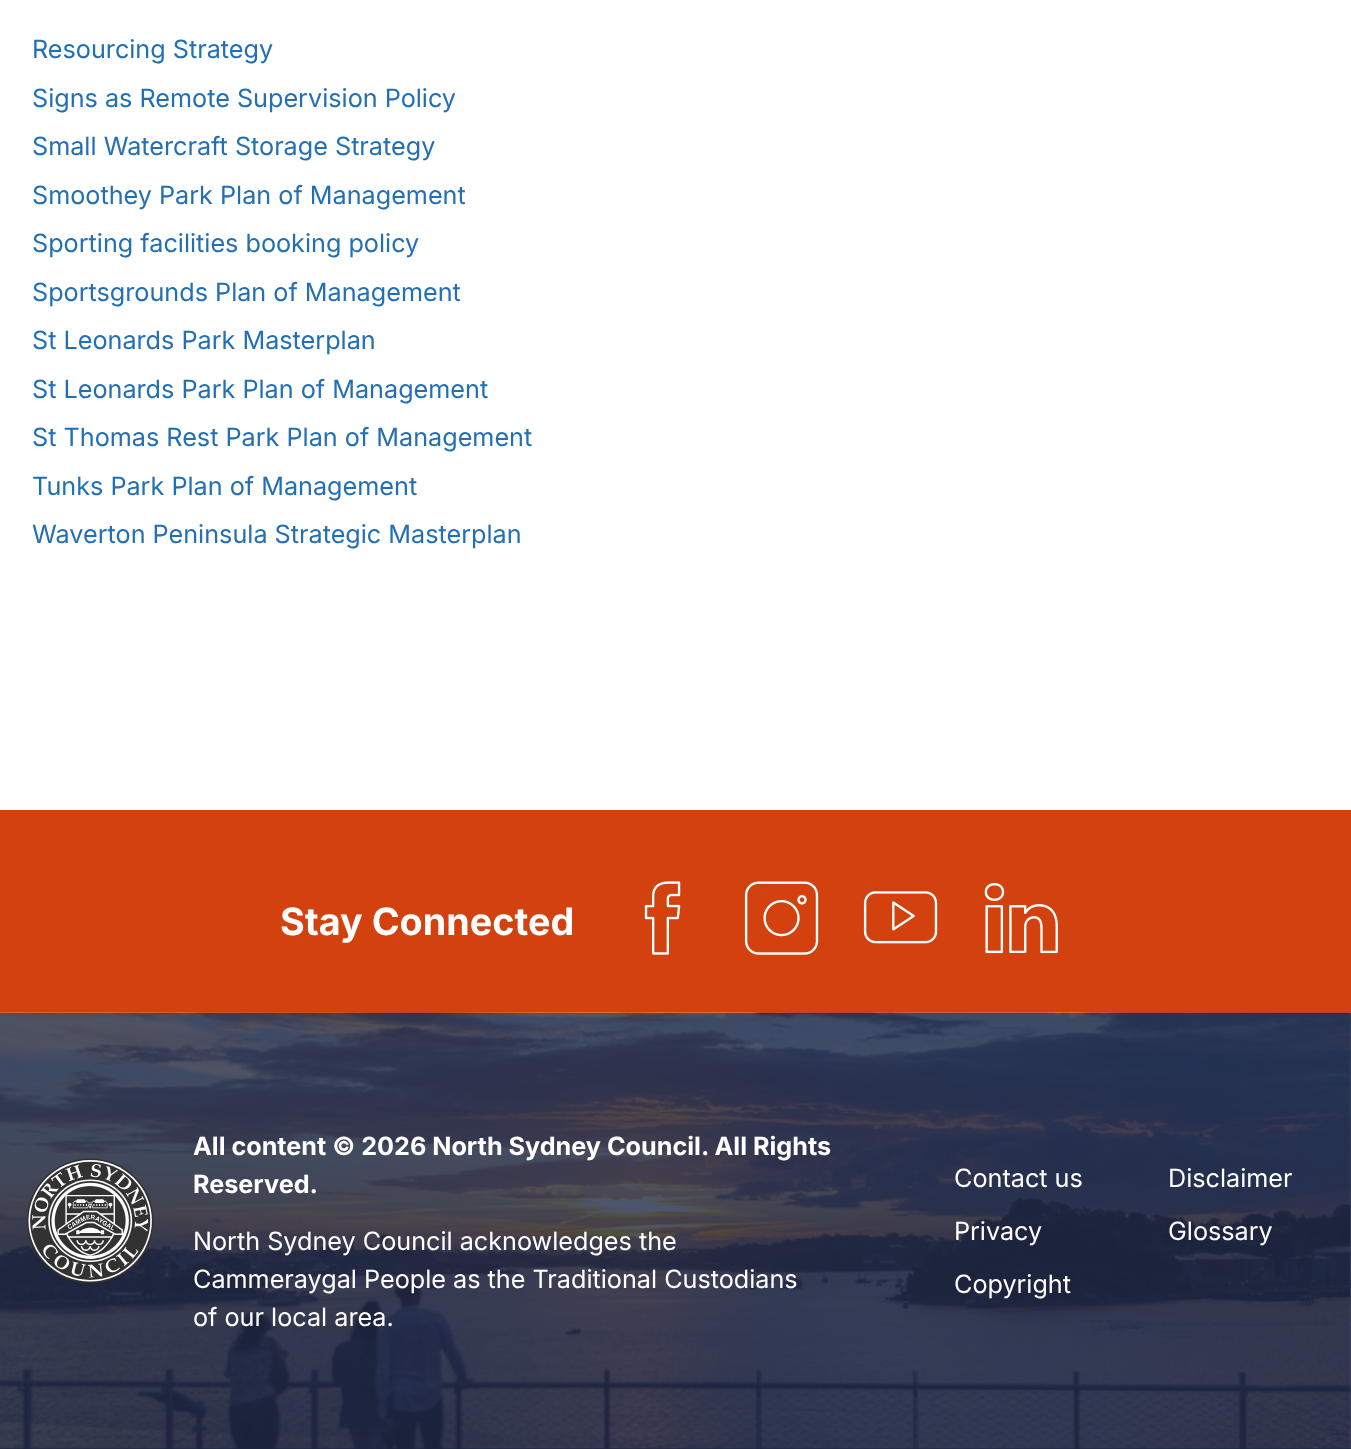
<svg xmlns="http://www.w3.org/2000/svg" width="1351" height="1449">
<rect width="100%" height="100%" fill="#fff"/>
<text x="32" y="58" style="font-family:Inter;font-size:25.2px;fill:#226fb4">Resourcing Strategy</text>
<text x="32" y="107" style="font-family:Inter;font-size:25.2px;fill:#226fb4">Signs as Remote Supervision Policy</text>
<text x="32" y="155" style="font-family:Inter;font-size:25.2px;fill:#226fb4">Small Watercraft Storage Strategy</text>
<text x="32" y="204" style="font-family:Inter;font-size:25.2px;fill:#226fb4">Smoothey Park Plan of Management</text>
<text x="32" y="252" style="font-family:Inter;font-size:25.2px;fill:#226fb4">Sporting facilities booking policy</text>
<text x="32" y="301" style="font-family:Inter;font-size:25.2px;fill:#226fb4">Sportsgrounds Plan of Management</text>
<text x="32" y="349" style="font-family:Inter;font-size:25.2px;fill:#226fb4">St Leonards Park Masterplan</text>
<text x="32" y="398" style="font-family:Inter;font-size:25.2px;fill:#226fb4">St Leonards Park Plan of Management</text>
<text x="32" y="446" style="font-family:Inter;font-size:25.2px;fill:#226fb4">St Thomas Rest Park Plan of Management</text>
<text x="32" y="495" style="font-family:Inter;font-size:25.2px;fill:#226fb4">Tunks Park Plan of Management</text>
<text x="32" y="543" style="font-family:Inter;font-size:25.2px;fill:#226fb4">Waverton Peninsula Strategic Masterplan</text>
<rect y="810" width="1351" height="203" fill="#d3410e"/>
<text x="280" y="935" style="font-family:Inter;font-size:37.75px;font-weight:bold;fill:#fff">Stay Connected</text>
<image x="644" y="881" width="37" height="74" href="media/1.png"/>
<image x="744" y="881" width="75" height="74" href="media/2.png"/>
<image x="863" y="891" width="75" height="53" href="media/3.png"/>
<image x="984" y="883" width="74" height="71" href="media/4.png"/>
<rect y="1448" width="1351" height="1" fill="#1b233c"/>
<image x="0" y="1012" width="1351" height="437" href="media/5.png"/>
<image x="26" y="1158" width="128" height="126" href="media/6.png"/>
<text x="193" y="1155" style="font-family:Inter;font-size:25.2px;font-weight:bold;fill:#fff">All content © 2026 North Sydney Council. All Rights</text>
<text x="193" y="1193" style="font-family:Inter;font-size:25.2px;font-weight:bold;fill:#fff">Reserved.</text>
<text x="193" y="1250" style="font-family:Inter;font-size:25.2px;fill:#fff">North Sydney Council acknowledges the</text>
<text x="193" y="1288" style="font-family:Inter;font-size:25.2px;fill:#fff">Cammeraygal People as the Traditional Custodians</text>
<text x="193" y="1326" style="font-family:Inter;font-size:25.2px;fill:#fff">of our local area.</text>
<text x="954" y="1187" style="font-family:Inter;font-size:25.2px;fill:#fff">Contact us</text>
<text x="1168" y="1187" style="font-family:Inter;font-size:25.2px;fill:#fff">Disclaimer</text>
<text x="954" y="1240" style="font-family:Inter;font-size:25.2px;fill:#fff">Privacy</text>
<text x="1168" y="1240" style="font-family:Inter;font-size:25.2px;fill:#fff">Glossary</text>
<text x="954" y="1293" style="font-family:Inter;font-size:25.2px;fill:#fff">Copyright</text>
</svg>
